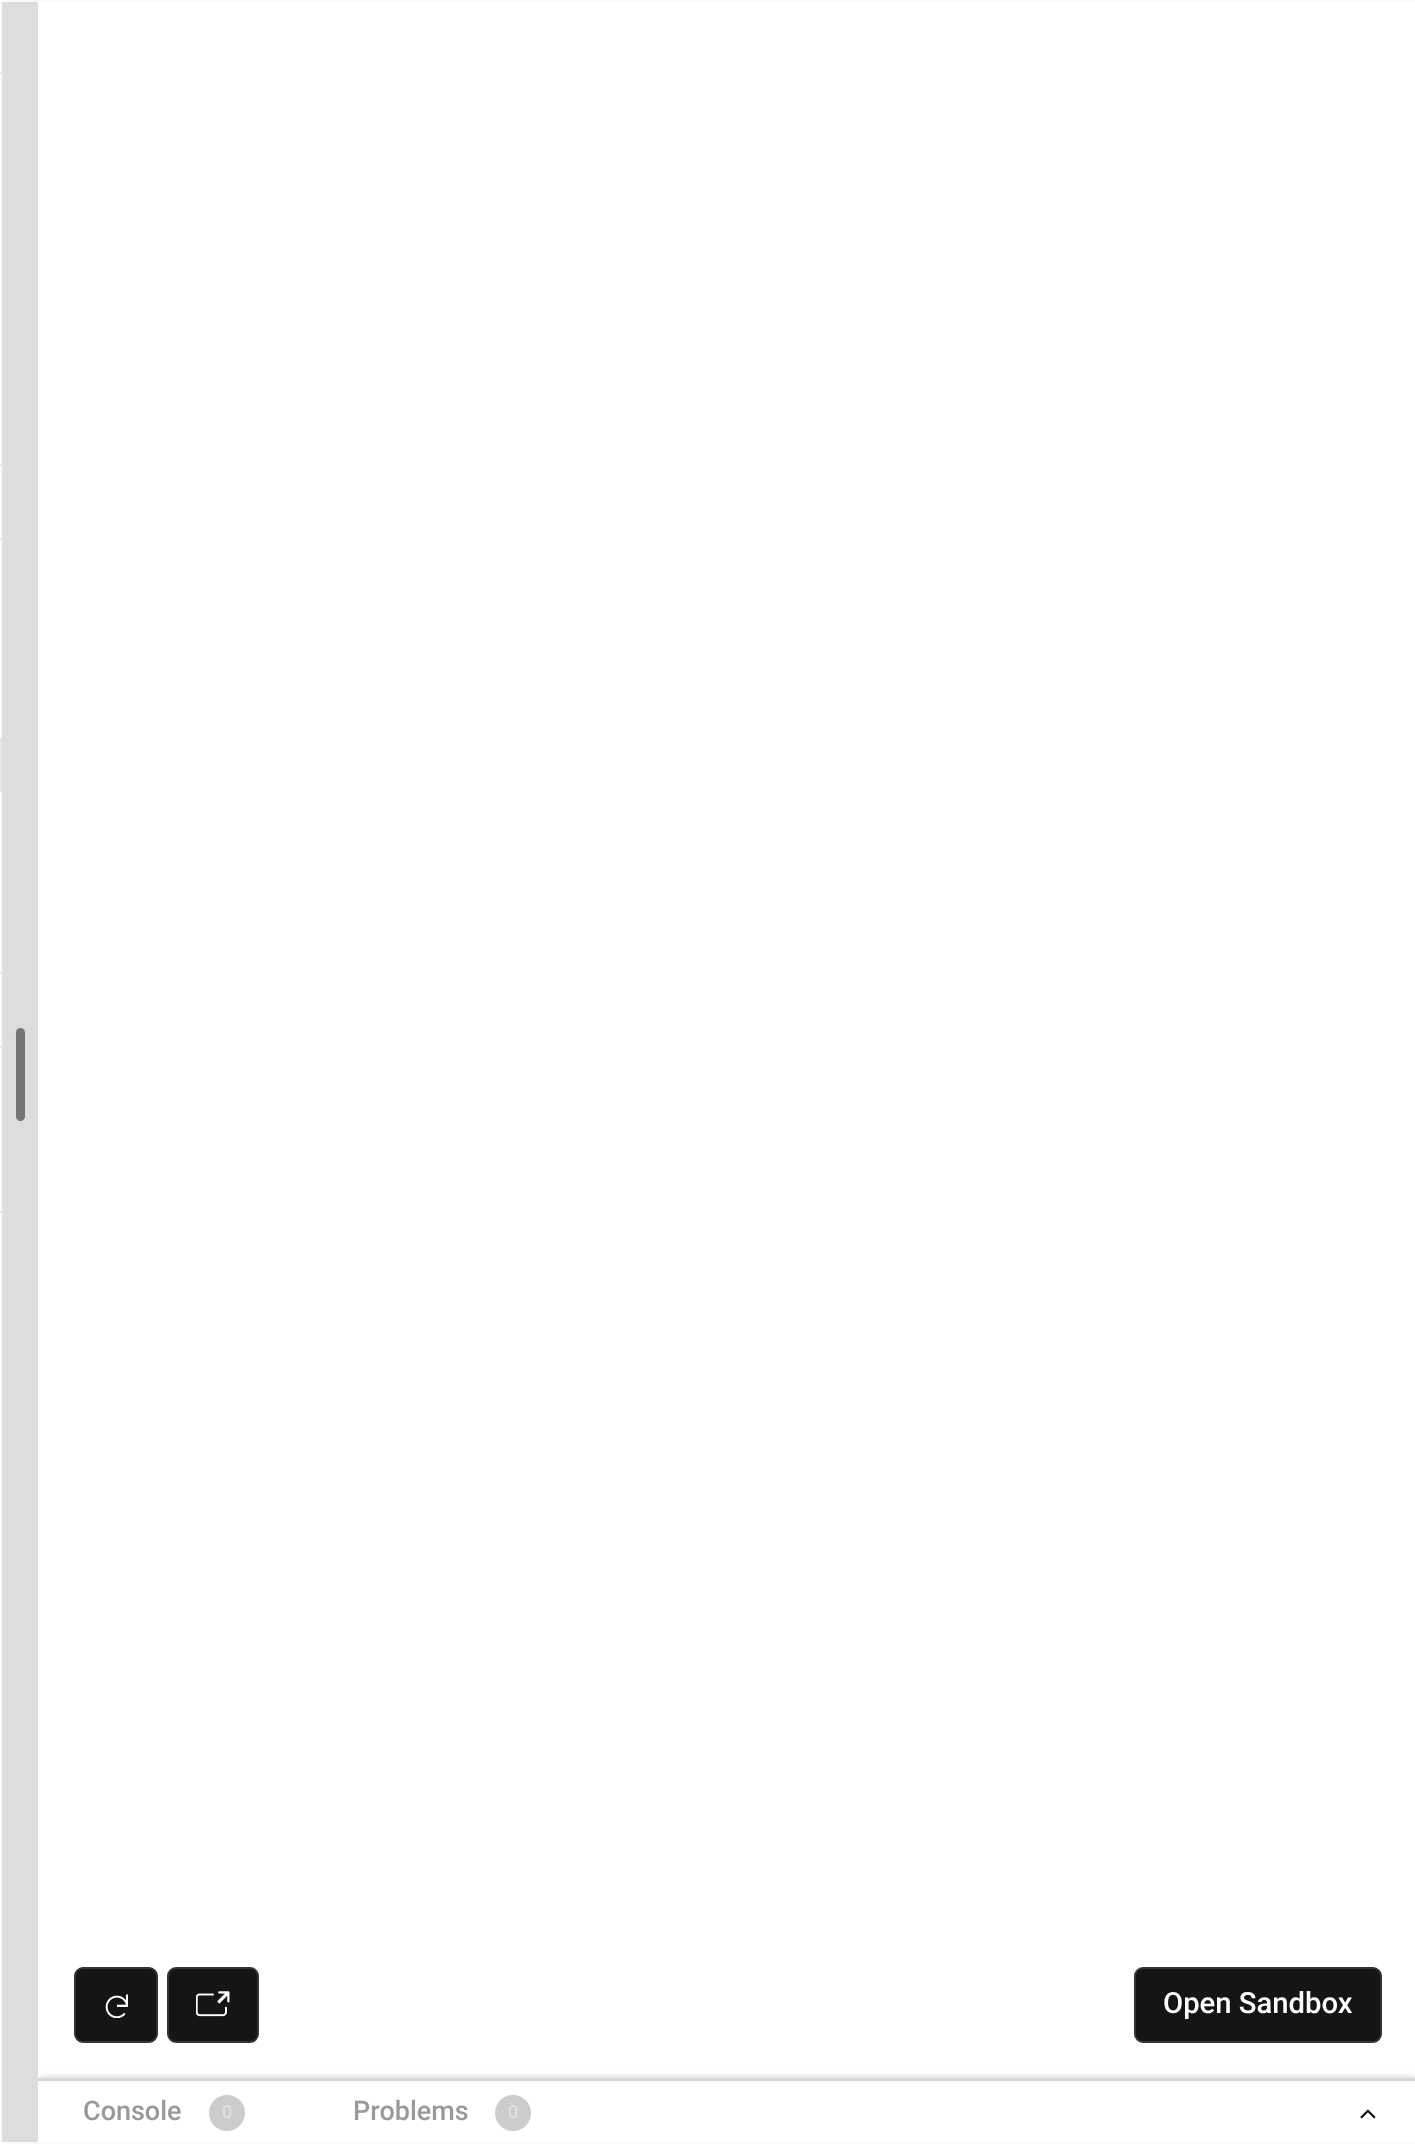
<svg xmlns="http://www.w3.org/2000/svg" width="1415" height="2144">
<defs>
<clipPath id="clip1"><rect x="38" y="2" width="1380" height="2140"/></clipPath>
</defs>
<rect width="100%" height="100%" fill="#fff"/>
<rect y="72" width="2" height="2" fill="#e6e6e6"/>
<rect y="464" width="2" height="2" fill="#e6e6e6"/>
<rect y="538" width="2" height="2" fill="#e6e6e6"/>
<rect y="972" width="2" height="2" fill="#e6e6e6"/>
<rect y="738" width="2" height="54" fill="#e6e6e6"/>
<rect y="1046" width="2" height="2" fill="#e6e6e6"/>
<rect y="1211" width="2" height="2" fill="#e6e6e6"/>
<rect x="1" y="1" width="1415" height="2142" fill="none" stroke="#e6e6e633" stroke-width="2"/>
<rect x="1135" y="1968" width="246" height="74" rx="8" fill="#151515" stroke="#343434" stroke-width="2"/>
<text x="1163" y="2013" style="font-family:Roboto;font-size:29.25px;font-weight:500;fill:#fff">Open Sandbox</text>
<g clip-path="url(#clip1)">
<rect x="38" y="2079" width="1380" height="65" fill="#0000004d" filter="blur(3.5px)"/>
</g>
<rect x="2" y="2" width="36" height="2140" fill="#ddd"/>
<rect x="16" y="1028" width="9" height="93" rx="4.5" fill="#757575"/>
<rect x="75" y="1968" width="82" height="74" rx="8" fill="#151515" stroke="#343434" stroke-width="2"/>
<image x="105" y="1994" width="23" height="24" href="media/1.png"/>
<rect x="168" y="1968" width="90" height="74" rx="8" fill="#151515" stroke="#343434" stroke-width="2"/>
<image x="196" y="1991" width="34" height="26" href="media/2.png"/>
<rect x="38" y="2081" width="1377" height="61" fill="#fff"/>
<rect x="38" y="2079" width="1377" height="2" fill="#d3d3d3"/>
<text x="83" y="2120" style="font-family:Roboto;font-size:27px;font-weight:500;fill:#999">Console</text>
<circle cx="227" cy="2113" r="18" fill="#ccc"/>
<text x="222" y="2118" style="font-family:Roboto;font-size:18px;font-weight:500;fill:#e0e0e0">0</text>
<text x="353" y="2120" style="font-family:Roboto;font-size:27px;font-weight:500;fill:#999">Problems</text>
<circle cx="513" cy="2113" r="18" fill="#ccc"/>
<text x="508" y="2118" style="font-family:Roboto;font-size:18px;font-weight:500;fill:#e0e0e0">0</text>
<image x="1360" y="2109" width="16" height="10" href="media/3.png"/>
</svg>
